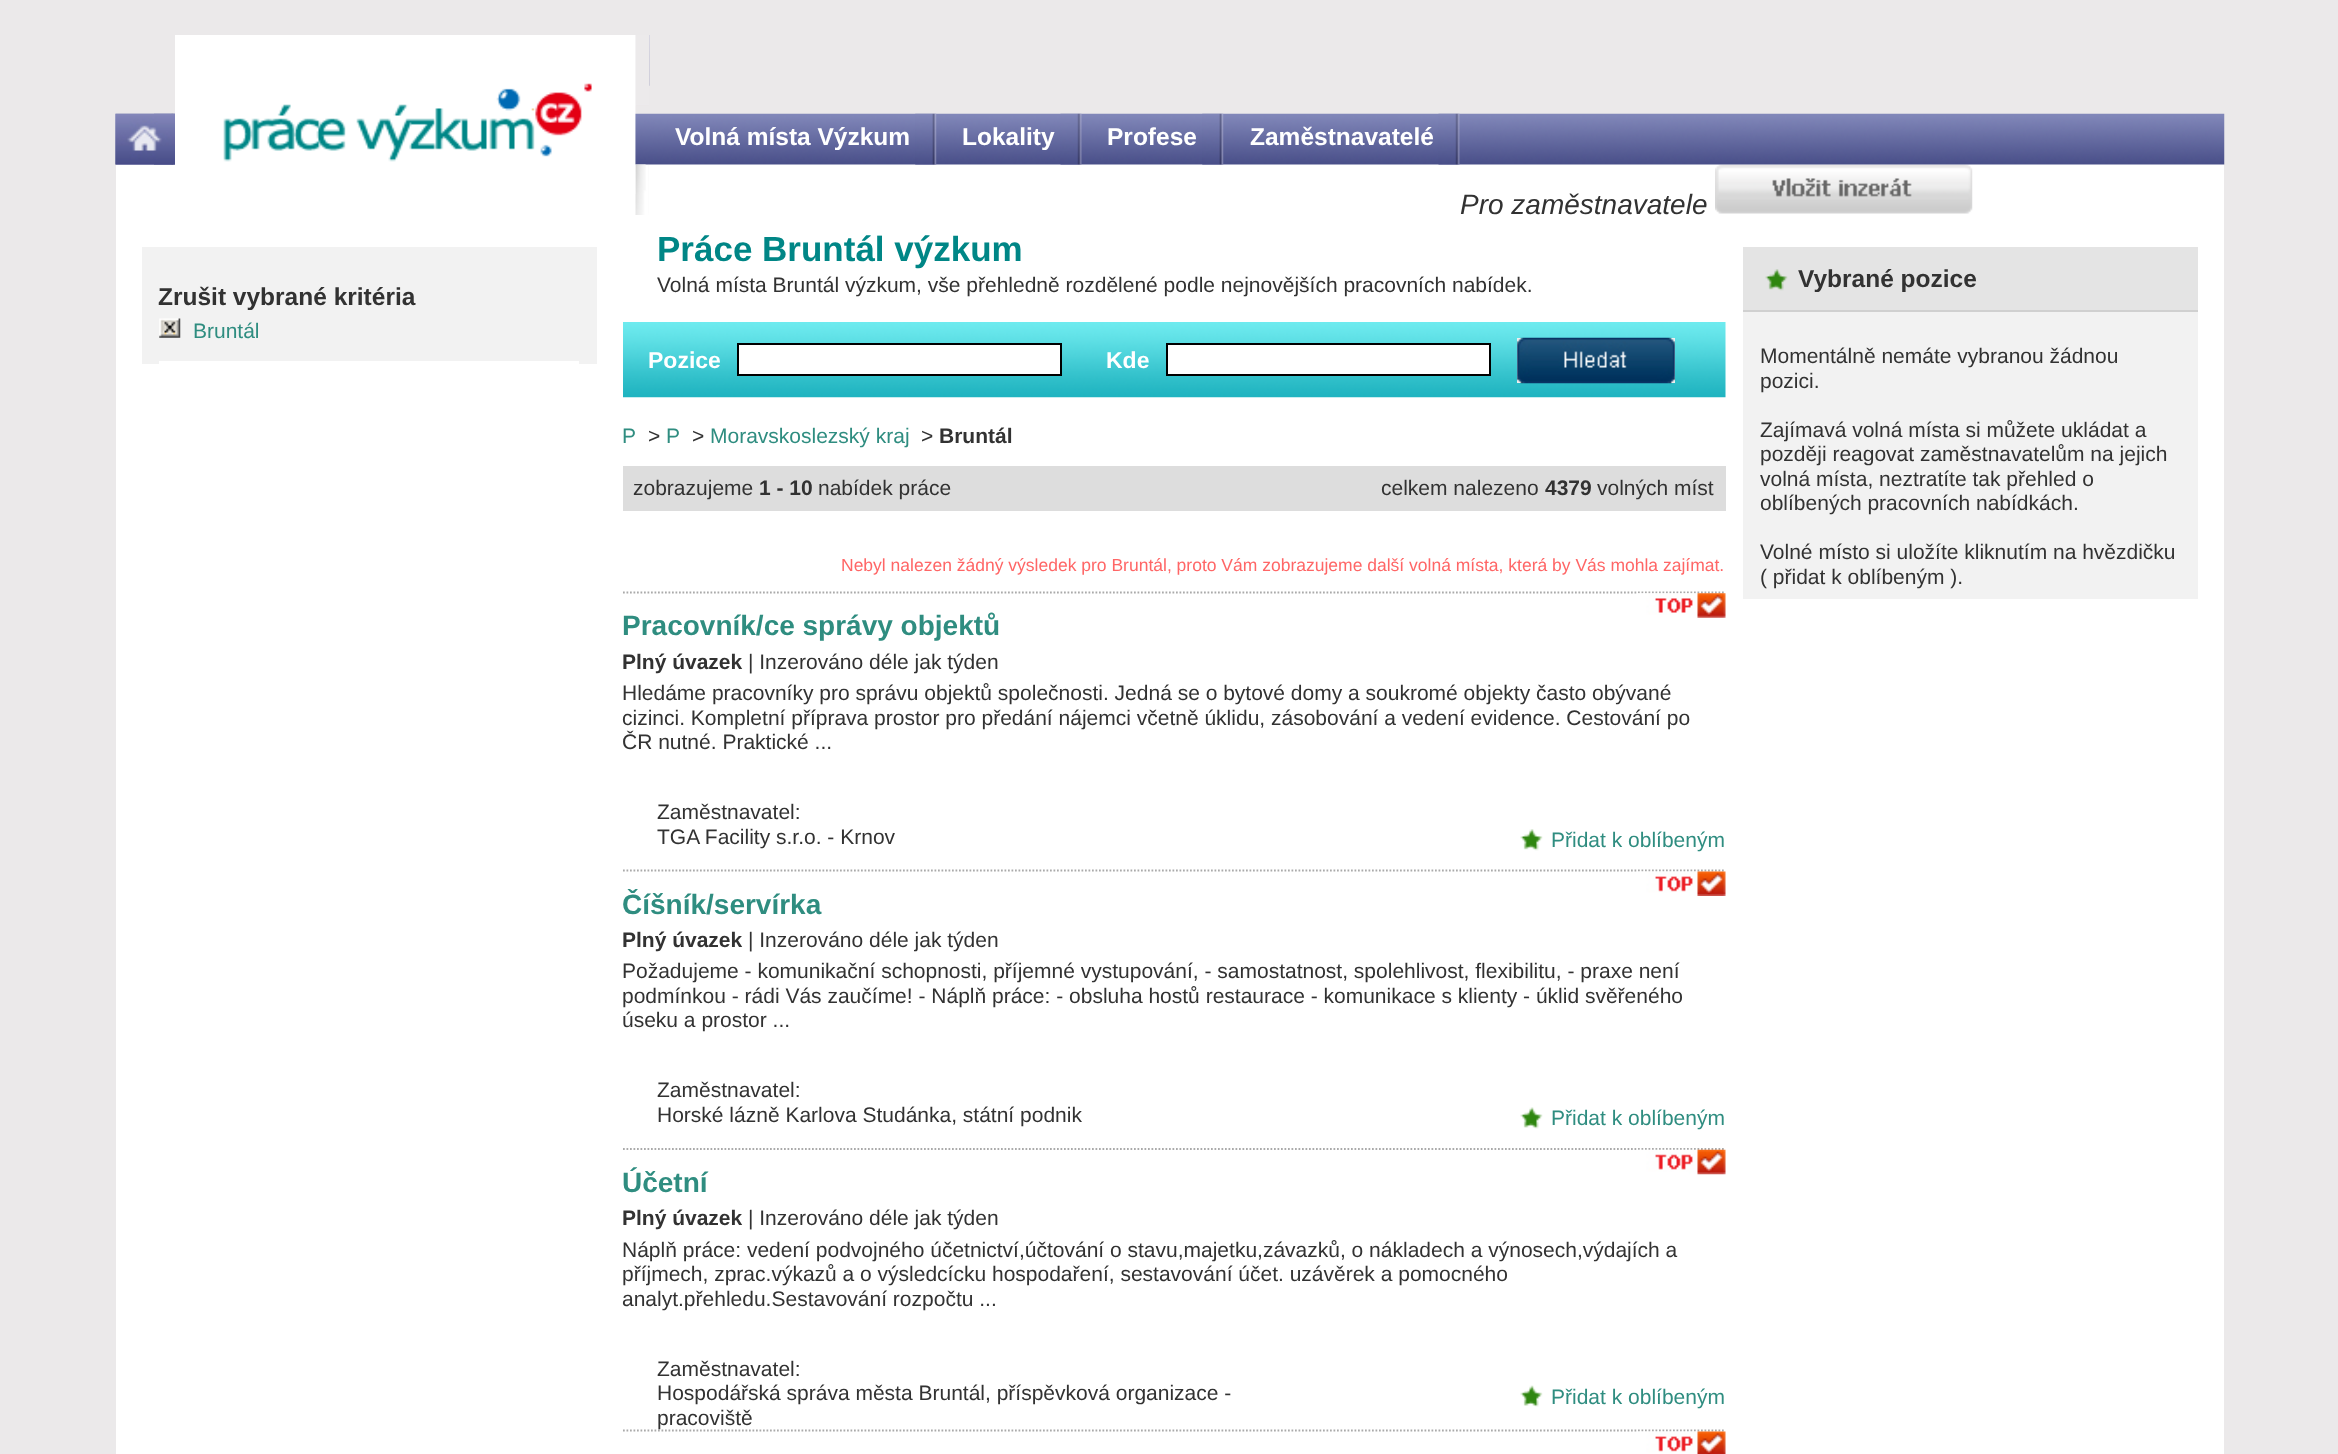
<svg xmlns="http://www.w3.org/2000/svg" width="2338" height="1454">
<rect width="100%" height="100%" fill="#ebe9ea"/>
<rect x="116" y="164" width="2108" height="1290" fill="#fff"/>
<image x="1715" y="164" width="258" height="50" href="media/10.png"/>
<image x="115" y="113" width="2110" height="52" href="media/1.png"/>
<image x="154" y="113" width="21" height="52" href="media/2.png"/>
<image x="115" y="113" width="60" height="52" href="media/3.png"/>
<image x="649" y="35" width="1" height="51" href="media/4.png"/>
<image x="175" y="35" width="474" height="180" href="media/5.png"/>
<rect x="635" y="35" width="1" height="159" fill="#ffffff40"/>
<image x="915" y="113" width="22" height="52" href="media/6.png"/>
<text x="675" y="145" style="font-family:Liberation Sans;font-size:24.5px;font-weight:bold;fill:#fff">Volná místa Výzkum</text>
<image x="1060" y="113" width="22" height="52" href="media/7.png"/>
<text x="962" y="145" style="font-family:Liberation Sans;font-size:24.5px;font-weight:bold;fill:#fff">Lokality</text>
<image x="1202" y="113" width="22" height="52" href="media/8.png"/>
<text x="1107" y="145" style="font-family:Liberation Sans;font-size:24.5px;font-weight:bold;fill:#fff">Profese</text>
<image x="1438" y="113" width="22" height="52" href="media/9.png"/>
<text x="1250" y="145" style="font-family:Liberation Sans;font-size:24.5px;font-weight:bold;fill:#fff">Zaměstnavatelé</text>
<text x="1460" y="214" style="font-family:Liberation Sans;font-size:28px;font-style:italic;fill:#323232">Pro zaměstnavatele</text>
<rect x="142" y="247" width="455" height="117" fill="#f2f2f2"/>
<text x="158" y="305" style="font-family:Liberation Sans;font-size:24.5px;font-weight:bold;fill:#323232">Zrušit vybrané kritéria</text>
<image x="159" y="318" width="22" height="20" href="media/11.png"/>
<text x="193" y="338" style="font-family:Liberation Sans;font-size:21px;fill:#2f8d80">Bruntál</text>
<rect x="159" y="361" width="420" height="3" fill="#fff"/>
<text x="657" y="261" style="font-family:Liberation Sans;font-size:35px;font-weight:bold;fill:#008686">Práce Bruntál výzkum</text>
<text x="657" y="292" style="font-family:Liberation Sans;font-size:21px;fill:#323232">Volná místa Bruntál výzkum, vše přehledně rozdělené podle nejnovějších pracovních nabídek.</text>
<image x="623" y="322" width="1103" height="76" href="media/12.png"/>
<text x="648" y="368" style="font-family:Liberation Sans;font-size:23px;font-weight:bold;fill:#fff">Pozice</text>
<rect x="738" y="344" width="323" height="31" fill="#fff" stroke="#000" stroke-width="2"/>
<text x="1106" y="368" style="font-family:Liberation Sans;font-size:23px;font-weight:bold;fill:#fff">Kde</text>
<rect x="1167" y="344" width="323" height="31" fill="#fff" stroke="#000" stroke-width="2"/>
<rect x="1517" y="338" width="158" height="45" fill="#efefef"/>
<image x="1517" y="337" width="158" height="47" href="media/13.png"/>
<text x="622" y="443" style="font-family:Liberation Sans;font-size:21px;fill:#2f8d80">P</text>
<text x="648" y="443" style="font-family:Liberation Sans;font-size:21px;fill:#323232">&gt;</text>
<text x="666" y="443" style="font-family:Liberation Sans;font-size:21px;fill:#2f8d80">P</text>
<text x="692" y="443" style="font-family:Liberation Sans;font-size:21px;fill:#323232">&gt;</text>
<text x="710" y="443" style="font-family:Liberation Sans;font-size:21px;fill:#2f8d80">Moravskoslezský kraj</text>
<text x="921" y="443" style="font-family:Liberation Sans;font-size:21px;fill:#323232">&gt;</text>
<text x="939" y="443" style="font-family:Liberation Sans;font-size:21px;font-weight:bold;fill:#323232">Bruntál</text>
<rect x="623" y="466" width="1103" height="45" fill="#ddd"/>
<text x="633" y="495" style="font-family:Liberation Sans;font-size:21px;fill:#323232">zobrazujeme</text>
<text x="759" y="495" style="font-family:Liberation Sans;font-size:21px;font-weight:bold;fill:#323232">1 - 10</text>
<text x="818" y="495" style="font-family:Liberation Sans;font-size:21px;fill:#323232">nabídek práce</text>
<text x="1381" y="495" style="font-family:Liberation Sans;font-size:21px;fill:#323232">celkem nalezeno</text>
<text x="1545" y="495" style="font-family:Liberation Sans;font-size:21px;font-weight:bold;fill:#323232">4379</text>
<text x="1597" y="495" style="font-family:Liberation Sans;font-size:21px;fill:#323232">volných míst</text>
<text x="841" y="571" style="font-family:Liberation Sans;font-size:17.5px;fill:#f66">Nebyl nalezen žádný výsledek pro Bruntál, proto Vám zobrazujeme další volná místa, která by Vás mohla zajímat.</text>
<path d="M623 592.5h1102.5" fill="none" stroke="#aaa" stroke-width="1.8" stroke-dasharray="1.75 1.75"/>
<image x="1638" y="593" width="88" height="25" href="media/14.png"/>
<text x="622" y="635" style="font-family:Liberation Sans;font-size:28px;font-weight:bold;fill:#2f8d80">Pracovník/ce správy objektů</text>
<text x="622" y="669" style="font-family:Liberation Sans;font-size:21px;font-weight:bold;fill:#323232">Plný úvazek</text>
<text x="748" y="669" style="font-family:Liberation Sans;font-size:21px;fill:#323232">| Inzerováno déle jak týden</text>
<text x="622" y="700" style="font-family:Liberation Sans;font-size:21px;fill:#323232">Hledáme pracovníky pro správu objektů společnosti. Jedná se o bytové domy a soukromé objekty často obývané</text>
<text x="622" y="725" style="font-family:Liberation Sans;font-size:21px;fill:#323232">cizinci. Kompletní příprava prostor pro předání nájemci včetně úklidu, zásobování a vedení evidence. Cestování po</text>
<text x="622" y="749" style="font-family:Liberation Sans;font-size:21px;fill:#323232">ČR nutné. Praktické ...</text>
<text x="657" y="819" style="font-family:Liberation Sans;font-size:21px;fill:#323232">Zaměstnavatel:</text>
<text x="657" y="844" style="font-family:Liberation Sans;font-size:21px;fill:#323232">TGA Facility s.r.o. - Krnov</text>
<image x="1520" y="829" width="23" height="22" href="media/15.png"/>
<text x="1551" y="847" style="font-family:Liberation Sans;font-size:21px;fill:#2f8d80">Přidat k oblíbeným</text>
<path d="M623 870.5h1102.5" fill="none" stroke="#aaa" stroke-width="1.8" stroke-dasharray="1.75 1.75"/>
<image x="1638" y="871" width="88" height="25" href="media/16.png"/>
<text x="622" y="914" style="font-family:Liberation Sans;font-size:28px;font-weight:bold;fill:#2f8d80">Číšník/servírka</text>
<text x="622" y="947" style="font-family:Liberation Sans;font-size:21px;font-weight:bold;fill:#323232">Plný úvazek</text>
<text x="748" y="947" style="font-family:Liberation Sans;font-size:21px;fill:#323232">| Inzerováno déle jak týden</text>
<text x="622" y="978" style="font-family:Liberation Sans;font-size:21px;fill:#323232">Požadujeme - komunikační schopnosti, příjemné vystupování, - samostatnost, spolehlivost, flexibilitu, - praxe není</text>
<text x="622" y="1003" style="font-family:Liberation Sans;font-size:21px;fill:#323232">podmínkou - rádi Vás zaučíme! - Náplň práce: - obsluha hostů restaurace - komunikace s klienty - úklid svěřeného</text>
<text x="622" y="1027" style="font-family:Liberation Sans;font-size:21px;fill:#323232">úseku a prostor ...</text>
<text x="657" y="1097" style="font-family:Liberation Sans;font-size:21px;fill:#323232">Zaměstnavatel:</text>
<text x="657" y="1122" style="font-family:Liberation Sans;font-size:21px;fill:#323232">Horské lázně Karlova Studánka, státní podnik</text>
<image x="1520" y="1107" width="23" height="22" href="media/17.png"/>
<text x="1551" y="1125" style="font-family:Liberation Sans;font-size:21px;fill:#2f8d80">Přidat k oblíbeným</text>
<path d="M623 1149h1102.5" fill="none" stroke="#aaa" stroke-width="1.8" stroke-dasharray="1.75 1.75"/>
<image x="1638" y="1149" width="88" height="26" href="media/18.png"/>
<text x="622" y="1192" style="font-family:Liberation Sans;font-size:28px;font-weight:bold;fill:#2f8d80">Účetní</text>
<text x="622" y="1225" style="font-family:Liberation Sans;font-size:21px;font-weight:bold;fill:#323232">Plný úvazek</text>
<text x="748" y="1225" style="font-family:Liberation Sans;font-size:21px;fill:#323232">| Inzerováno déle jak týden</text>
<text x="622" y="1257" style="font-family:Liberation Sans;font-size:21px;fill:#323232">Náplň práce: vedení podvojného účetnictví,účtování o stavu,majetku,závazků, o nákladech a výnosech,výdajích a</text>
<text x="622" y="1281" style="font-family:Liberation Sans;font-size:21px;fill:#323232">příjmech, zprac.výkazů a o výsledcícku hospodaření, sestavování účet. uzávěrek a pomocného</text>
<text x="622" y="1306" style="font-family:Liberation Sans;font-size:21px;fill:#323232">analyt.přehledu.Sestavování rozpočtu ...</text>
<text x="657" y="1376" style="font-family:Liberation Sans;font-size:21px;fill:#323232">Zaměstnavatel:</text>
<text x="657" y="1400" style="font-family:Liberation Sans;font-size:21px;fill:#323232">Hospodářská správa města Bruntál, příspěvková organizace -</text>
<path d="M623 1430.5h1102.5" fill="none" stroke="#aaa" stroke-width="1.8" stroke-dasharray="1.75 1.75"/>
<text x="657" y="1425" style="font-family:Liberation Sans;font-size:21px;fill:#323232">pracoviště</text>
<image x="1520" y="1385" width="23" height="22" href="media/19.png"/>
<text x="1551" y="1404" style="font-family:Liberation Sans;font-size:21px;fill:#2f8d80">Přidat k oblíbeným</text>
<image x="1638" y="1431" width="88" height="23" href="media/20.png"/>
<rect x="1743" y="312" width="455" height="287" fill="#f2f2f2"/>
<rect x="1743" y="247" width="455" height="63" fill="#e4e4e4"/>
<rect x="1743" y="310" width="455" height="2" fill="#d0d0d0"/>
<image x="1765" y="269" width="23" height="22" href="media/21.png"/>
<text x="1798" y="287" style="font-family:Liberation Sans;font-size:24.5px;font-weight:bold;fill:#323232">Vybrané pozice</text>
<text x="1760" y="363" style="font-family:Liberation Sans;font-size:21px;fill:#323232">Momentálně nemáte vybranou žádnou</text>
<text x="1760" y="388" style="font-family:Liberation Sans;font-size:21px;fill:#323232">pozici.</text>
<text x="1760" y="437" style="font-family:Liberation Sans;font-size:21px;fill:#323232">Zajímavá volná místa si můžete ukládat a</text>
<text x="1760" y="461" style="font-family:Liberation Sans;font-size:21px;fill:#323232">později reagovat zaměstnavatelům na jejich</text>
<text x="1760" y="486" style="font-family:Liberation Sans;font-size:21px;fill:#323232">volná místa, neztratíte tak přehled o</text>
<text x="1760" y="510" style="font-family:Liberation Sans;font-size:21px;fill:#323232">oblíbených pracovních nabídkách.</text>
<text x="1760" y="559" style="font-family:Liberation Sans;font-size:21px;fill:#323232">Volné místo si uložíte kliknutím na hvězdičku</text>
<text x="1760" y="584" style="font-family:Liberation Sans;font-size:21px;fill:#323232">( přidat k oblíbeným ).</text>
</svg>
